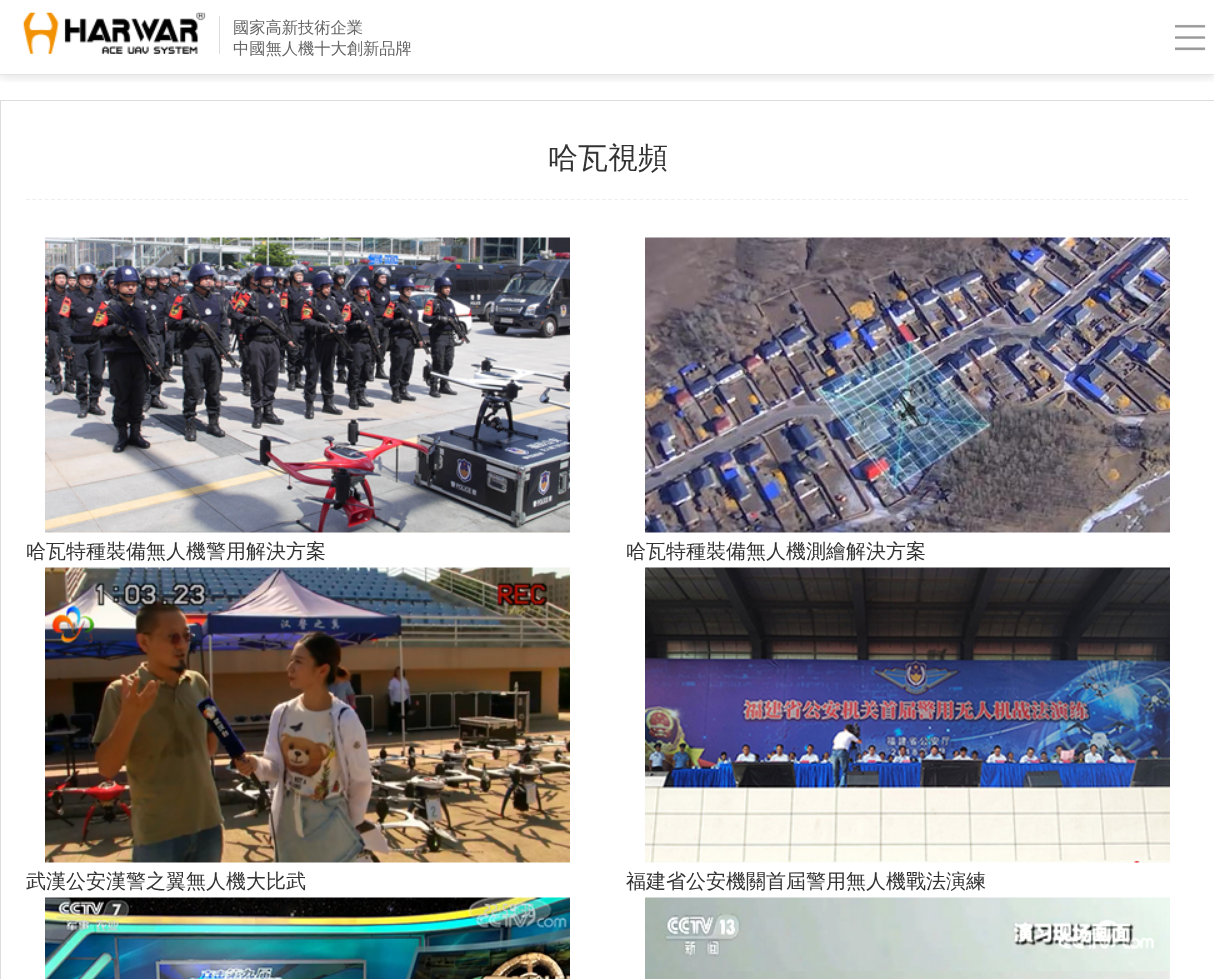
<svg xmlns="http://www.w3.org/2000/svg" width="1214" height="979">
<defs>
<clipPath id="clip1"><rect x="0" y="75" width="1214" height="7"/></clipPath>
</defs>
<rect width="100%" height="100%" fill="#fff"/>
<g clip-path="url(#clip1)">
<rect y="3" width="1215" height="75" fill="#0000001a" filter="blur(5px)"/>
</g>
<rect y="74" width="1214" height="1" fill="#e5e5e5"/>
<image x="23" y="12" width="183" height="42" href="media/1.png"/>
<rect x="219" y="16" width="1" height="38" fill="#dcdcdc"/>
<text x="233" y="33" style="font-family:WenQuanYi Zen Hei;font-size:16.25px;font-weight:500;fill:#666">國家高新技術企業</text>
<text x="233" y="54" style="font-family:WenQuanYi Zen Hei;font-size:16.25px;font-weight:500;fill:#666">中國無人機十大創新品牌</text>
<image x="1175" y="24" width="31" height="27" href="media/2.png"/>
<rect x="0.5" y="100.5" width="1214" height="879" fill="none" stroke="#dcdcdc"/>
<path d="M26 199.5h1163" fill="none" stroke="#eee" stroke-width="1.2" stroke-dasharray="3.75 2.51"/>
<text x="548" y="168" style="font-family:WenQuanYi Zen Hei;font-size:30px;font-weight:500;fill:#333">哈瓦視頻</text>
<image x="45" y="237" width="525" height="296" href="media/3.png"/>
<text x="26" y="558" style="font-family:WenQuanYi Zen Hei;font-size:20px;font-weight:500;fill:#333">哈瓦特種裝備無人機警用解決方案</text>
<image x="645" y="237" width="525" height="296" href="media/4.png"/>
<text x="626" y="558" style="font-family:WenQuanYi Zen Hei;font-size:20px;font-weight:500;fill:#333">哈瓦特種裝備無人機測繪解決方案</text>
<image x="45" y="567" width="525" height="296" href="media/5.png"/>
<text x="26" y="888" style="font-family:WenQuanYi Zen Hei;font-size:20px;font-weight:500;fill:#333">武漢公安漢警之翼無人機大比武</text>
<image x="645" y="567" width="525" height="296" href="media/6.png"/>
<text x="626" y="888" style="font-family:WenQuanYi Zen Hei;font-size:20px;font-weight:500;fill:#333">福建省公安機關首屆警用無人機戰法演練</text>
<image x="45" y="897" width="525" height="82" href="media/7.png"/>
<image x="645" y="897" width="525" height="82" href="media/8.png"/>
</svg>
